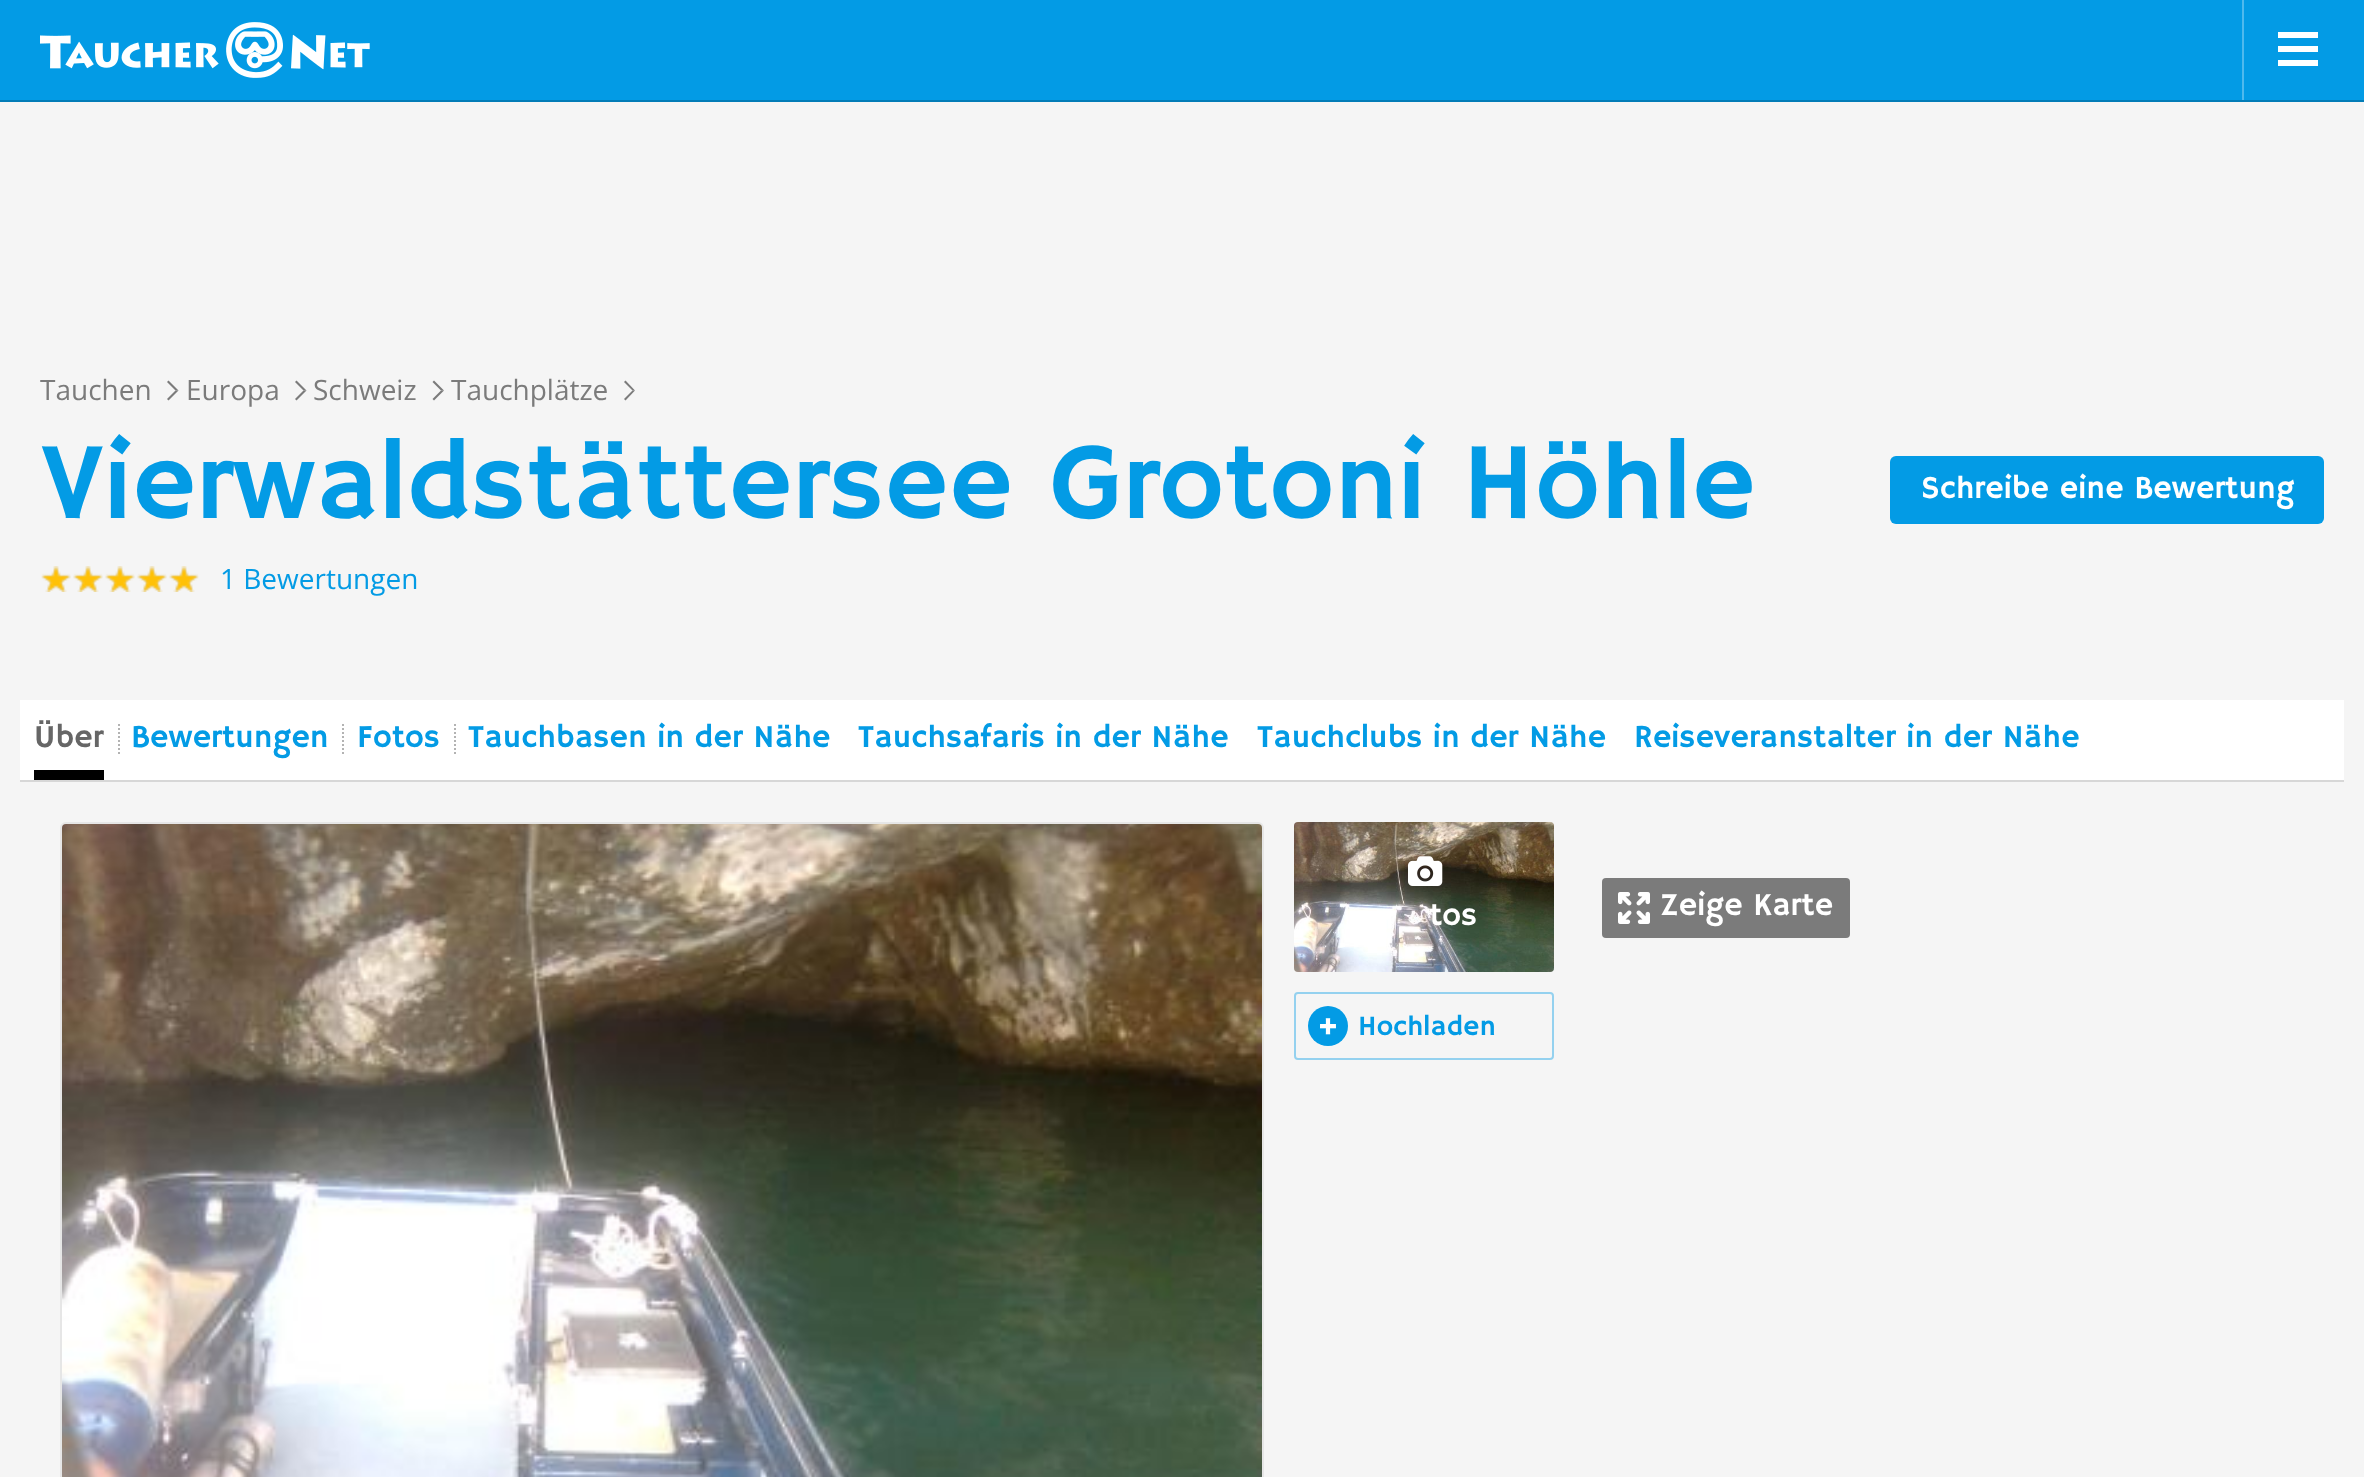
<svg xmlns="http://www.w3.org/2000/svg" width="2364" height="1477">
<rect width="100%" height="100%" fill="#f5f5f5"/>
<rect width="2364" height="100" fill="#039be5"/>
<rect y="100" width="2364" height="2" fill="#027cb7"/>
<image x="40" y="22" width="330" height="56" href="media/1.png"/>
<rect x="2242" width="2" height="100" fill="#4fb9ed"/>
<rect x="2278" y="46" width="40" height="6" fill="#fff"/>
<rect x="2278" y="32" width="40" height="6" fill="#fff"/>
<rect x="2278" y="60" width="40" height="6" fill="#fff"/>
<text x="40" y="400" style="font-family:Open Sans;font-size:28px;fill:#7b7b7b">Tauchen</text>
<path d="M168.5 380.5l10 10h-3l-8.5-8.5z" fill="#7b7b7b"/>
<path d="M178.5 390.5l-10 10l-1.5-1.5l8.5-8.5z" fill="#7b7b7b"/>
<text x="186" y="400" style="font-family:Open Sans;font-size:28px;fill:#7b7b7b">Europa</text>
<path d="M296.5 380.5l10 10h-3l-8.5-8.5z" fill="#7b7b7b"/>
<path d="M306.5 390.5l-10 10l-1.5-1.5l8.5-8.5z" fill="#7b7b7b"/>
<text x="313" y="400" style="font-family:Open Sans;font-size:28px;fill:#7b7b7b">Schweiz</text>
<path d="M434 380.5l10 10h-3l-8.5-8.5z" fill="#7b7b7b"/>
<path d="M444 390.5l-10 10l-1.5-1.5l8.5-8.5z" fill="#7b7b7b"/>
<text x="451" y="400" style="font-family:Open Sans;font-size:28px;fill:#7b7b7b">Tauchplätze</text>
<path d="M625.5 380.5l9.5 10h-2.5l-8.5-8.5z" fill="#7b7b7b"/>
<path d="M635 390.5l-9.5 10l-1.5-1.5l8.5-8.5z" fill="#7b7b7b"/>
<text x="40" y="518" style="font-family:Hammersmith One;font-size:110px;fill:#039be5">Vierwaldstättersee Grotoni Höhle</text>
<image x="42" y="566" width="156" height="26" href="media/2.png"/>
<image x="41" y="566" width="158" height="26" href="media/3.png"/>
<text x="220" y="589" style="font-family:Open Sans;font-size:28px;fill:#039be5">1 Bewertungen</text>
<rect x="1890" y="456" width="434" height="68" rx="6" fill="#039be5"/>
<text x="1921" y="498" style="font-family:Hammersmith One;font-size:32px;fill:#fff">Schreibe eine Bewertung</text>
<rect x="20" y="700" width="2324" height="80" fill="#fff"/>
<rect x="20" y="780" width="2324" height="2" fill="#d7d7d7"/>
<rect x="34" y="770" width="70" height="10" fill="#000"/>
<text x="34" y="747" style="font-family:Hammersmith One;font-size:32px;fill:#666">Über</text>
<path d="M119 724v32" fill="none" stroke="#b3b3b3" stroke-width="2" stroke-dasharray="2 2"/>
<text x="131" y="747" style="font-family:Hammersmith One;font-size:32px;fill:#039be5">Bewertungen</text>
<path d="M343 724v32" fill="none" stroke="#b3b3b3" stroke-width="2" stroke-dasharray="2 2"/>
<text x="357" y="747" style="font-family:Hammersmith One;font-size:32px;fill:#039be5">Fotos</text>
<path d="M455 724v32" fill="none" stroke="#b3b3b3" stroke-width="2" stroke-dasharray="2 2"/>
<text x="468" y="747" style="font-family:Hammersmith One;font-size:32px;fill:#039be5">Tauchbasen in der Nähe</text>
<text x="858" y="747" style="font-family:Hammersmith One;font-size:32px;fill:#039be5">Tauchsafaris in der Nähe</text>
<text x="1257" y="747" style="font-family:Hammersmith One;font-size:32px;fill:#039be5">Tauchclubs in der Nähe</text>
<text x="1634" y="747" style="font-family:Hammersmith One;font-size:32px;fill:#039be5">Reiseveranstalter in der Nähe</text>
<rect x="61" y="823" width="1202" height="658" rx="5" fill="none" stroke="#e6e6e6" stroke-width="2"/>
<image x="62" y="824" width="1200" height="653" href="media/4.png"/>
<image x="1294" y="822" width="260" height="150" href="media/5.png"/>
<image x="1408" y="856" width="35" height="30" href="media/6.png"/>
<text x="1429" y="925" style="font-family:Hammersmith One;font-size:32px;fill:#fff">tos</text>
<rect x="1295" y="993" width="258" height="66" rx="3" fill="none" stroke="#94d1ef" stroke-width="2"/>
<circle cx="1328" cy="1026" r="20" fill="#039be5"/>
<text x="1316" y="1037" style="font-family:Hammersmith One;font-size:36px;fill:#fff">+</text>
<text x="1358" y="1035" style="font-family:Hammersmith One;font-size:28px;fill:#039be5">Hochladen</text>
<rect x="1602" y="878" width="248" height="60" rx="4" fill="#7b7b7b"/>
<image x="1618" y="892" width="32" height="32" href="media/7.png"/>
<text x="1660" y="915" style="font-family:Hammersmith One;font-size:32px;fill:#fff">Zeige Karte</text>
</svg>
